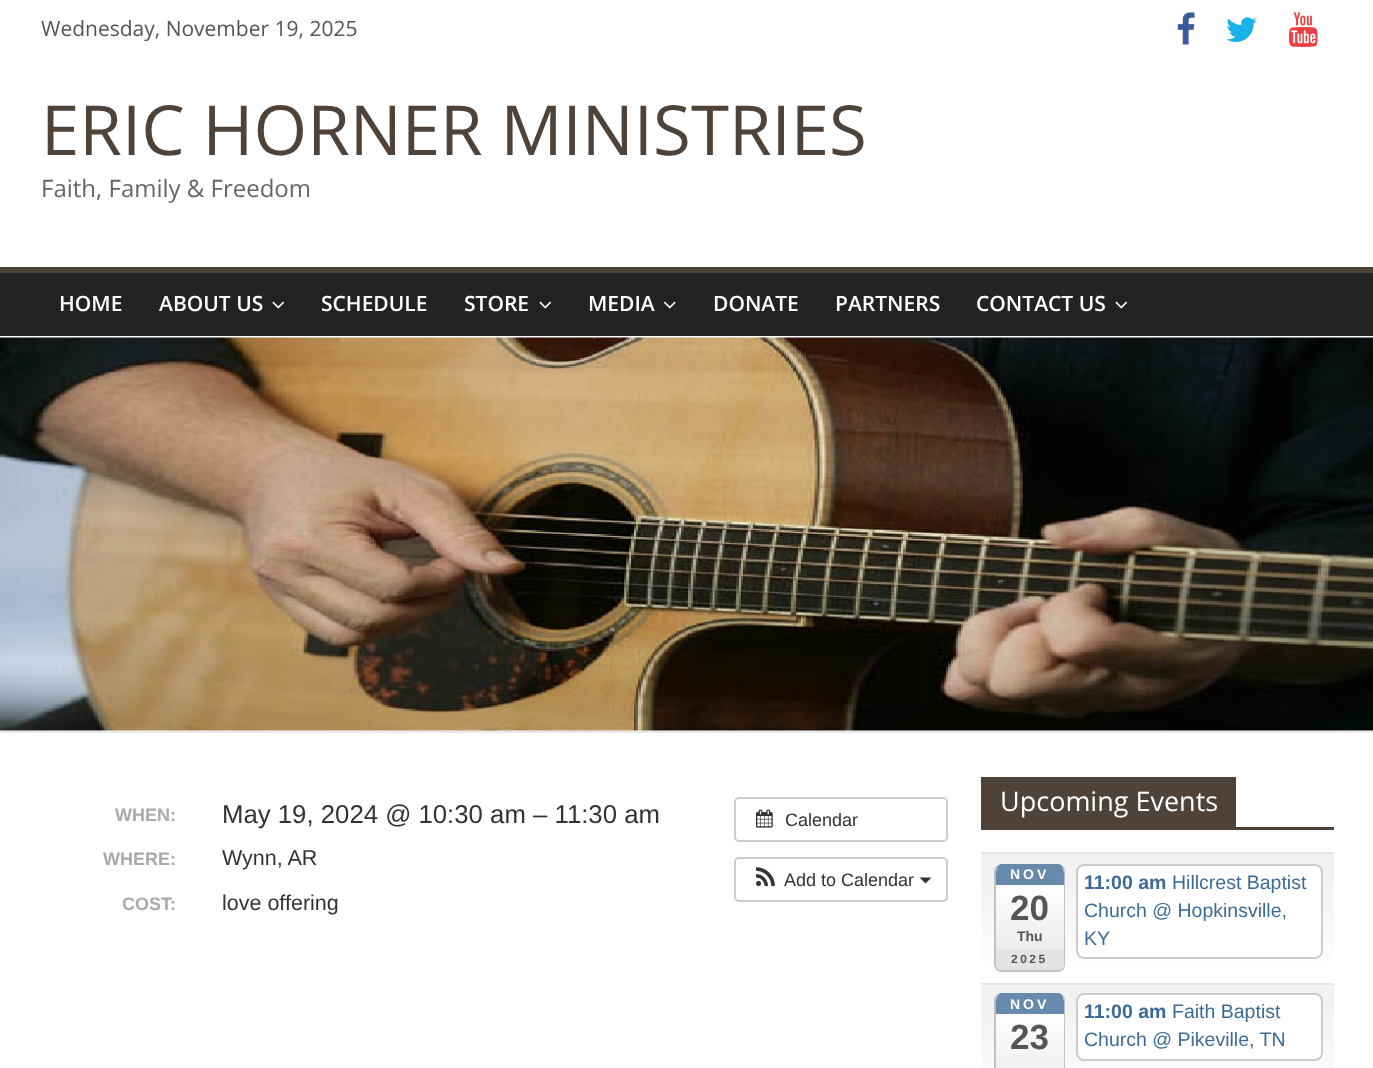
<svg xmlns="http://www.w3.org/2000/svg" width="1373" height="1068">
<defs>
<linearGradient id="g1" gradientUnits="userSpaceOnUse" x1="1157" y1="854" x2="1157" y2="983"><stop offset="0" stop-color="#f2f2f2"/><stop offset="0.15" stop-color="#f2f2f2"/><stop offset="1" stop-color="#fff"/></linearGradient>
<clipPath id="clip1"><rect x="995" y="864" width="70" height="108" rx="8"/></clipPath>
<linearGradient id="g2" gradientUnits="userSpaceOnUse" x1="1030" y1="864" x2="1030" y2="971"><stop offset="0" stop-color="#fff"/><stop offset="0.16" stop-color="#fff"/><stop offset="1" stop-color="#e7e7e7"/></linearGradient>
<linearGradient id="g3" gradientUnits="userSpaceOnUse" x1="1157" y1="984" x2="1157" y2="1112"><stop offset="0" stop-color="#f2f2f2"/><stop offset="0.15" stop-color="#f2f2f2"/><stop offset="1" stop-color="#fff"/></linearGradient>
<clipPath id="clip2"><rect x="995" y="993" width="70" height="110" rx="8"/></clipPath>
<linearGradient id="g4" gradientUnits="userSpaceOnUse" x1="1030" y1="993" x2="1030" y2="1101"><stop offset="0" stop-color="#fff"/><stop offset="0.16" stop-color="#fff"/><stop offset="1" stop-color="#e7e7e7"/></linearGradient>
</defs>
<rect width="100%" height="100%" fill="#fff"/>
<text x="41" y="36" style="font-family:Open Sans;font-size:21px;fill:#555">Wednesday, November 19, 2025</text>
<image x="1177" y="12" width="18" height="33" href="media/1.png"/>
<image x="1226" y="17" width="31" height="25" href="media/2.png"/>
<image x="1289" y="12" width="29" height="35" href="media/3.png"/>
<text x="41" y="155" style="font-family:Open Sans;font-size:69px;fill:#4f4239">ERIC HORNER MINISTRIES</text>
<text x="41" y="197" style="font-family:Open Sans;font-size:24px;fill:#666">Faith, Family &amp; Freedom</text>
<rect y="273" width="1373" height="63" fill="#232323"/>
<rect y="267" width="1373" height="6" fill="#4f4239"/>
<text x="59" y="311" style="font-family:Open Sans;font-size:21px;font-weight:600;fill:#fff">HOME</text>
<text x="159" y="311" style="font-family:Open Sans;font-size:21px;font-weight:600;fill:#fff">ABOUT US</text>
<image x="272" y="301" width="13" height="8" href="media/4.png"/>
<text x="321" y="311" style="font-family:Open Sans;font-size:21px;font-weight:600;fill:#fff">SCHEDULE</text>
<text x="464" y="311" style="font-family:Open Sans;font-size:21px;font-weight:600;fill:#fff">STORE</text>
<image x="539" y="301" width="13" height="8" href="media/4.png"/>
<text x="588" y="311" style="font-family:Open Sans;font-size:21px;font-weight:600;fill:#fff">MEDIA</text>
<image x="663" y="301" width="13" height="8" href="media/5.png"/>
<text x="713" y="311" style="font-family:Open Sans;font-size:21px;font-weight:600;fill:#fff">DONATE</text>
<text x="835" y="311" style="font-family:Open Sans;font-size:21px;font-weight:600;fill:#fff">PARTNERS</text>
<text x="976" y="311" style="font-family:Open Sans;font-size:21px;font-weight:600;fill:#fff">CONTACT US</text>
<image x="1115" y="301" width="13" height="8" href="media/4.png"/>
<image x="0" y="337" width="1373" height="394" href="media/6.png"/>
<rect y="731" width="1373" height="2" fill="#eaeaea"/>
<text x="115" y="821" style="font-family:Liberation Sans;font-size:18px;font-weight:bold;fill:#aaa">WHEN:</text>
<text x="222" y="823" style="font-family:Liberation Sans;font-size:25.75px;fill:#333">May 19, 2024 @ 10:30 am – 11:30 am</text>
<text x="103" y="865" style="font-family:Liberation Sans;font-size:18px;font-weight:bold;fill:#aaa">WHERE:</text>
<text x="222" y="865" style="font-family:Liberation Sans;font-size:21.5px;fill:#333">Wynn, AR</text>
<text x="122" y="910" style="font-family:Liberation Sans;font-size:18px;font-weight:bold;fill:#aaa">COST:</text>
<text x="222" y="910" style="font-family:Liberation Sans;font-size:21.5px;fill:#333">love offering</text>
<rect x="735" y="798" width="212" height="43" rx="4" fill="none" stroke="#ccc" stroke-width="2"/>
<image x="756" y="809" width="17" height="19" href="media/7.png"/>
<text x="785" y="826" style="font-family:Liberation Sans;font-size:18px;fill:#333">Calendar</text>
<rect x="735" y="858" width="212" height="43" rx="4" fill="none" stroke="#ccc" stroke-width="2"/>
<image x="756" y="867" width="19" height="20" href="media/8.png"/>
<text x="784" y="886" style="font-family:Liberation Sans;font-size:18px;fill:#333">Add to Calendar</text>
<path d="M919.5 877.5h12l-6 6z" fill="#333"/>
<rect x="981" y="827" width="353" height="3" fill="#4f4239"/>
<rect x="981" y="777" width="255" height="50" fill="#4f4239"/>
<text x="1000" y="811" style="font-family:Open Sans;font-size:27px;fill:#fff">Upcoming Events</text>
<rect x="981" y="854" width="353" height="108" fill="url(#g1)"/>
<rect x="981" y="852" width="353" height="2" fill="#e5e5e5"/>
<g clip-path="url(#clip1)">
<rect x="996" y="864" width="68" height="107" fill="url(#g2)"/>
</g>
<path d="M1002 864h56c4 0 7 3 7 8v92c0 5-3 8-7 8h-56c-4 0-8-3-8-8v-92c0-5 4-8 8-8zm0 0h56c3 0 6 3 6 8v92c0 4-3 6-6 6h-56c-3 0-6-2-6-6v-92c0-5 3-8 6-8z" fill="#c2c2c2" fill-rule="evenodd"/>
<path d="M1002 864c-8 0-6 16-6 21h68c0-5 2-21-6-21z" fill="#6689ac"/>
<text x="1010" y="879" style="font-family:Liberation Sans;font-size:14px;font-weight:bold;letter-spacing:3px;fill:#fff">NOV</text>
<text x="1010" y="920" style="font-family:Liberation Sans;font-size:35px;font-weight:bold;fill:#555">20</text>
<text x="1017" y="941" style="font-family:Liberation Sans;font-size:14px;font-weight:bold;fill:#555">Thu</text>
<path d="M996 950v14c0 4 3 6 6 6h56c3 0 6-2 6-6v-14z" fill="#e4e4e4"/>
<text x="1011" y="963" style="font-family:Liberation Sans;font-size:12px;font-weight:bold;letter-spacing:2.5px;fill:#555">2025</text>
<rect x="1077" y="865" width="245" height="93" rx="7" fill="#fff" stroke="#ccc" stroke-width="2"/>
<text x="1084" y="889" style="font-family:Liberation Sans;font-size:19.5px;font-weight:bold;fill:#3d6b99">11:00 am</text>
<text x="1172" y="889" style="font-family:Liberation Sans;font-size:19.5px;fill:#3d6b99">Hillcrest Baptist</text>
<text x="1084" y="917" style="font-family:Liberation Sans;font-size:19.5px;fill:#3d6b99">Church @ Hopkinsville,</text>
<text x="1084" y="945" style="font-family:Liberation Sans;font-size:19.5px;fill:#3d6b99">KY</text>
<rect x="981" y="985" width="353" height="83" fill="url(#g3)"/>
<rect x="981" y="983" width="353" height="2" fill="#e5e5e5"/>
<g clip-path="url(#clip2)">
<rect x="996" y="993" width="68" height="75" fill="url(#g4)"/>
</g>
<path d="M1002 993h56c4 0 7 3 7 7v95c0 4-3 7-7 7h-56c-4 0-8-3-8-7v-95c0-4 4-7 8-7zm0 0h56c3 0 6 3 6 7v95c0 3-3 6-6 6h-56c-3 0-6-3-6-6v-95c0-4 3-7 6-7z" fill="#c2c2c2" fill-rule="evenodd"/>
<path d="M1002 993c-8 0-6 16-6 21h68c0-5 2-21-6-21z" fill="#6689ac"/>
<text x="1010" y="1009" style="font-family:Liberation Sans;font-size:14px;font-weight:bold;letter-spacing:3px;fill:#fff">NOV</text>
<text x="1010" y="1049" style="font-family:Liberation Sans;font-size:35px;font-weight:bold;fill:#555">23</text>
<rect x="1077" y="994" width="245" height="66" rx="7" fill="#fff" stroke="#ccc" stroke-width="2"/>
<text x="1084" y="1018" style="font-family:Liberation Sans;font-size:19.5px;font-weight:bold;fill:#3d6b99">11:00 am</text>
<text x="1172" y="1018" style="font-family:Liberation Sans;font-size:19.5px;fill:#3d6b99">Faith Baptist</text>
<text x="1084" y="1046" style="font-family:Liberation Sans;font-size:19.5px;fill:#3d6b99">Church @ Pikeville, TN</text>
</svg>
